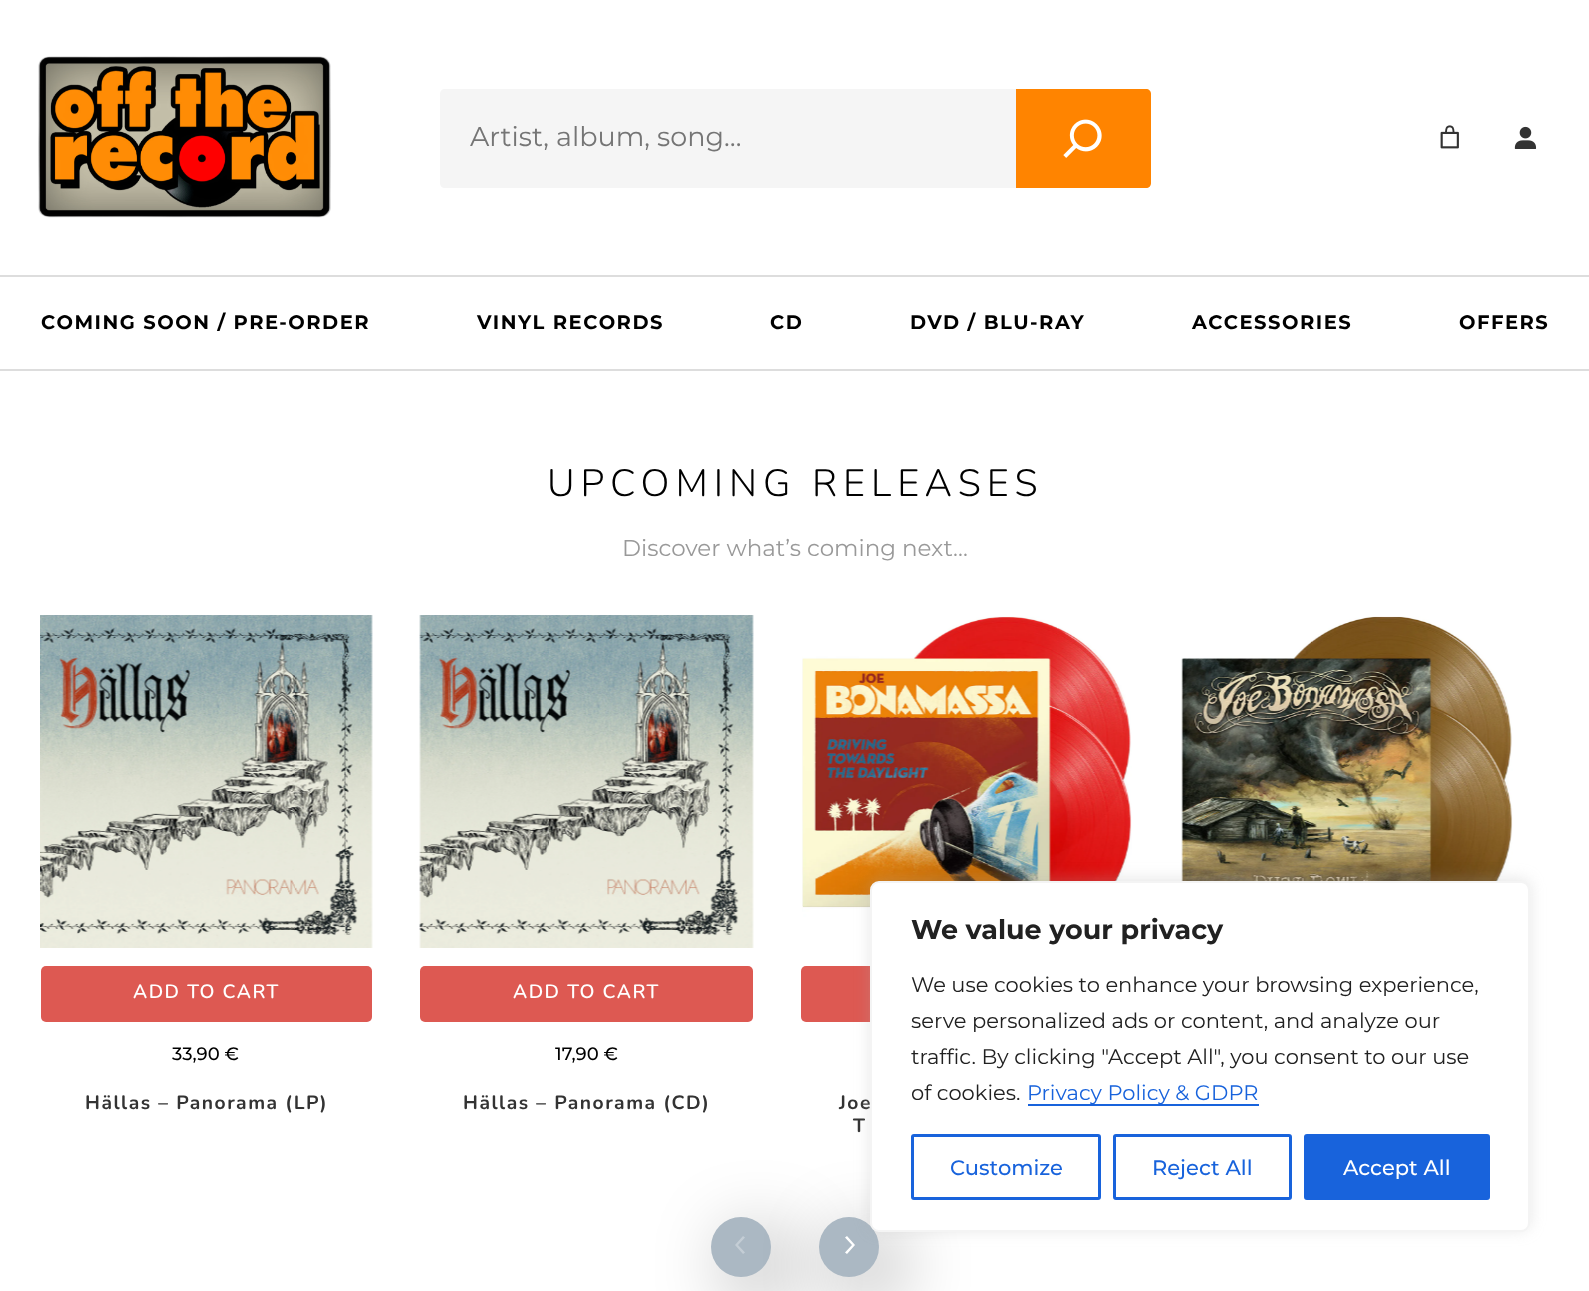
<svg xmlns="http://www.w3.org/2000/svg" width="1589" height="1291">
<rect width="100%" height="100%" fill="#fff"/>
<image x="38" y="56" width="293" height="162" href="media/1.png"/>
<path d="M445 89h574v99h-574c-3 0-5-2-5-5v-89c0-3 2-5 5-5z" fill="#f5f5f5"/>
<text x="470" y="146" style="font-family:Montserrat;font-size:27px;fill:#757575">Artist, album, song…</text>
<path d="M1016 89h130c3 0 5 2 5 5v89c0 3-2 5-5 5h-130z" fill="#ff8400"/>
<image x="1063" y="119" width="39" height="39" href="media/2.png"/>
<image x="1440" y="125" width="19" height="24" href="media/3.png"/>
<image x="1514" y="126" width="23" height="23" href="media/4.png"/>
<rect y="275" width="1589" height="2" fill="#ddd"/>
<rect y="369" width="1589" height="2" fill="#ddd"/>
<text x="41" y="329" style="font-family:Montserrat;font-size:19.5px;font-weight:bold;letter-spacing:1.5px;fill:#000">COMING SOON / PRE-ORDER</text>
<text x="477" y="329" style="font-family:Montserrat;font-size:19.5px;font-weight:bold;letter-spacing:1.5px;fill:#000">VINYL RECORDS</text>
<text x="770" y="329" style="font-family:Montserrat;font-size:19.5px;font-weight:bold;letter-spacing:1.5px;fill:#000">CD</text>
<text x="910" y="329" style="font-family:Montserrat;font-size:19.5px;font-weight:bold;letter-spacing:1.5px;fill:#000">DVD / BLU-RAY</text>
<text x="1192" y="329" style="font-family:Montserrat;font-size:19.5px;font-weight:bold;letter-spacing:1.5px;fill:#000">ACCESSORIES</text>
<text x="1459" y="329" style="font-family:Montserrat;font-size:19.5px;font-weight:bold;letter-spacing:1.5px;fill:#000">OFFERS</text>
<text x="547" y="496" style="font-family:Nunito;font-size:38px;font-weight:300;letter-spacing:6px;fill:#000">UPCOMING RELEASES</text>
<text x="622" y="556" style="font-family:Montserrat;font-size:23px;fill:#999">Discover what’s coming next…</text>
<image x="1181" y="616" width="332" height="265" href="media/5.png"/>
<image x="40" y="615" width="333" height="333" href="media/6.png"/>
<rect x="41" y="966" width="331" height="56" rx="5" fill="#dd5952"/>
<text x="133" y="998" style="font-family:Nunito;font-size:19.25px;font-weight:600;letter-spacing:1.5px;fill:#fff">ADD TO CART</text>
<text x="172" y="1060" style="font-family:Montserrat;font-size:18px;font-weight:500;fill:#000">33,90 €</text>
<text x="85" y="1109" style="font-family:Nunito;font-size:19.25px;font-weight:bold;letter-spacing:1.5px;fill:#333">Hällas – Panorama (LP)</text>
<image x="419" y="615" width="335" height="333" href="media/7.png"/>
<rect x="420" y="966" width="333" height="56" rx="5" fill="#dd5952"/>
<text x="513" y="998" style="font-family:Nunito;font-size:19.25px;font-weight:600;letter-spacing:1.5px;fill:#fff">ADD TO CART</text>
<text x="555" y="1060" style="font-family:Montserrat;font-size:18px;font-weight:500;fill:#000">17,90 €</text>
<text x="463" y="1109" style="font-family:Nunito;font-size:19.25px;font-weight:bold;letter-spacing:1.5px;fill:#333">Hällas – Panorama (CD)</text>
<image x="802" y="616" width="330" height="330" href="media/8.png"/>
<rect x="801" y="966" width="332" height="56" rx="5" fill="#dd5952"/>
<text x="839" y="1109" style="font-family:Nunito;font-size:19.25px;font-weight:bold;letter-spacing:1.5px;fill:#333">Joe</text>
<text x="853" y="1132" style="font-family:Nunito;font-size:19.25px;font-weight:bold;letter-spacing:1.5px;fill:#333">T</text>
<rect x="729" y="1235" width="60" height="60" rx="30" fill="#00000066" filter="blur(37.5px)"/>
<circle cx="741" cy="1247" r="30" fill="#abb8c3"/>
<path d="M743 1254l-8-9l8-9l2 1.5l-7 7.5l7 7.5z" fill="#c4cdd5"/>
<rect x="837" y="1235" width="60" height="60" rx="30" fill="#00000066" filter="blur(37.5px)"/>
<circle cx="849" cy="1247" r="30" fill="#abb8c3"/>
<path d="M847 1236l8 9l-8 9l-2-1.5l7-7.5l-7-7.5z" fill="#fff"/>
<rect x="870" y="879" width="660" height="351" rx="9" fill="#acabab4d" filter="blur(7.5px)"/>
<rect x="871" y="882" width="658" height="349" rx="8" fill="#fff" stroke="#f4f4f4" stroke-width="2"/>
<text x="911" y="939" style="font-family:Montserrat;font-size:27px;font-weight:bold;fill:#212121">We value your privacy</text>
<text x="911" y="992" style="font-family:Montserrat;font-size:21px;fill:#212121">We use cookies to enhance your browsing experience,</text>
<text x="911" y="1028" style="font-family:Montserrat;font-size:21px;fill:#212121">serve personalized ads or content, and analyze our</text>
<text x="911" y="1064" style="font-family:Montserrat;font-size:21px;fill:#212121">traffic. By clicking "Accept All", you consent to our use</text>
<text x="911" y="1100" style="font-family:Montserrat;font-size:21px;fill:#212121">of cookies.</text>
<rect x="1028" y="1104" width="231" height="2" fill="#1863dc"/>
<text x="1027" y="1100" style="font-family:Montserrat;font-size:21px;fill:#1863dc">Privacy Policy &amp; GDPR</text>
<rect x="912.5" y="1135.5" width="187" height="63" rx="1.5" fill="none" stroke="#1863dc" stroke-width="3"/>
<text x="950" y="1175" style="font-family:Montserrat;font-size:21px;font-weight:500;fill:#1863dc">Customize</text>
<rect x="1114.5" y="1135.5" width="176" height="63" rx="1.5" fill="none" stroke="#1863dc" stroke-width="3"/>
<text x="1152" y="1175" style="font-family:Montserrat;font-size:21px;font-weight:500;fill:#1863dc">Reject All</text>
<rect x="1305.5" y="1135.5" width="183" height="63" rx="1.5" fill="#1863dc" stroke="#1863dc" stroke-width="3"/>
<text x="1343" y="1175" style="font-family:Montserrat;font-size:21px;font-weight:500;fill:#fff">Accept All</text>
</svg>
